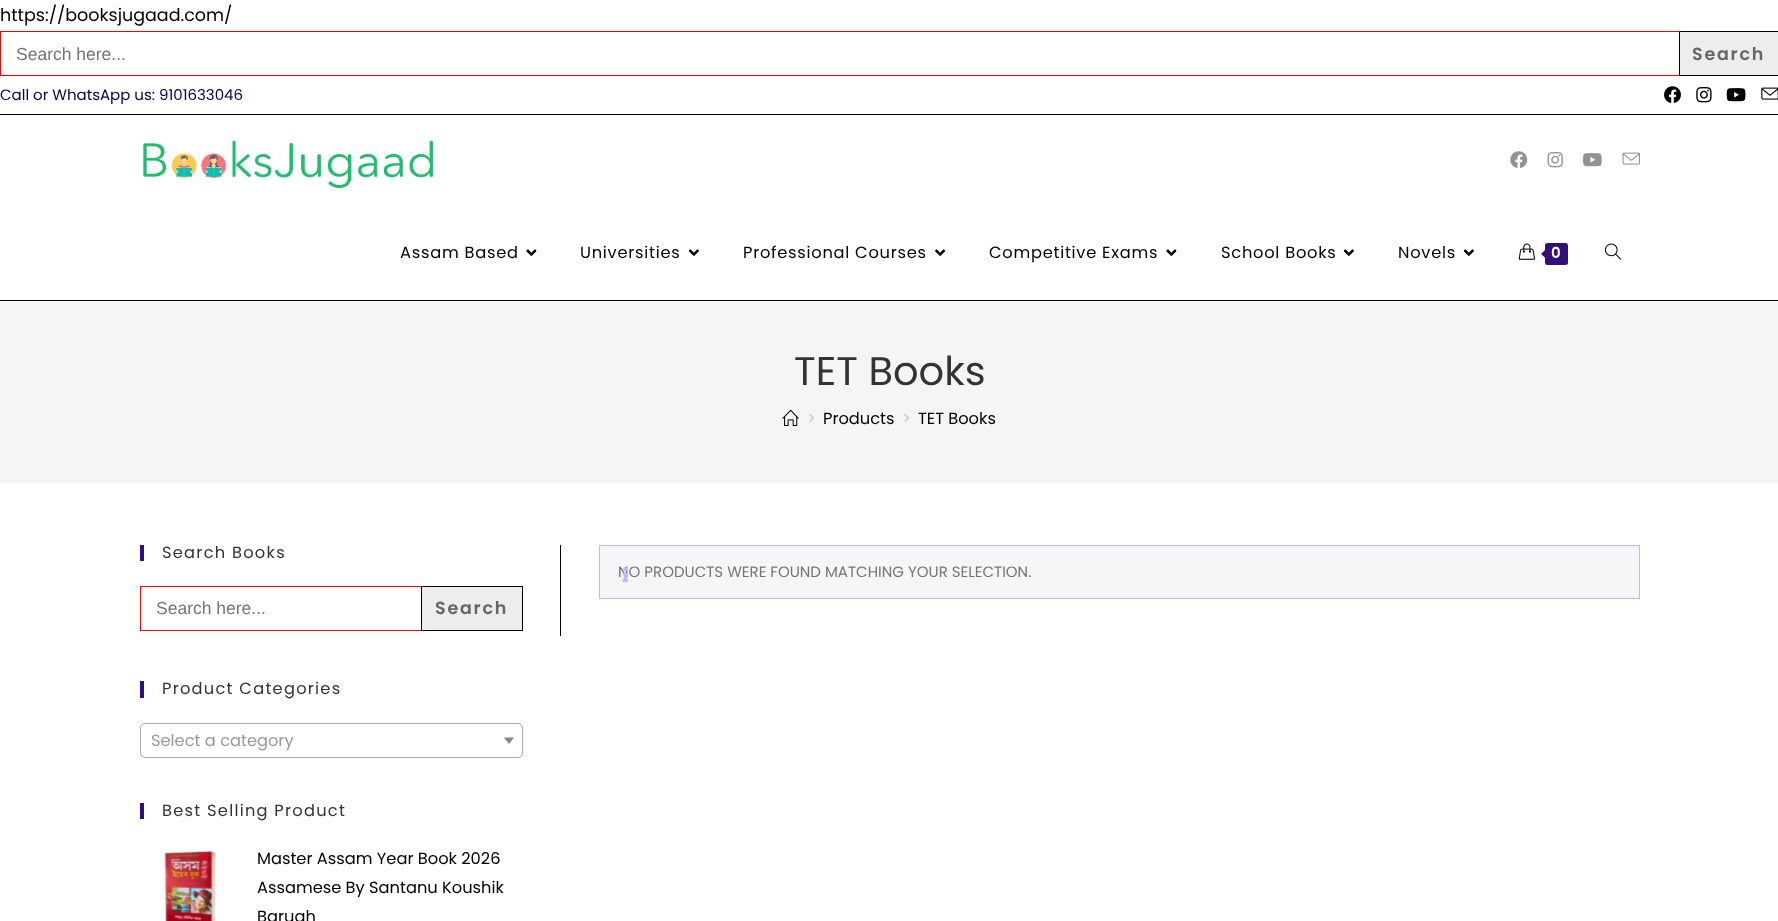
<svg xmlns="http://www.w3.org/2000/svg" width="1778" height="921">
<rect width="100%" height="100%" fill="#fff"/>
<text x="0" y="21" style="font-family:Poppins;font-size:17.5px;fill:#000">https://booksjugaad.com/</text>
<rect x="0.5" y="31.5" width="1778" height="44" fill="none" stroke="#f00"/>
<text x="16" y="60" style="font-family:Liberation Sans;font-size:17.5px;fill:#757575">Search here...</text>
<rect x="1679.5" y="31.5" width="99" height="44" fill="#ededed" stroke="#000"/>
<text x="1692" y="60" style="font-family:Poppins;font-size:17.5px;font-weight:600;letter-spacing:1.75px;fill:#666">Search</text>
<rect y="114" width="1778" height="1" fill="#000"/>
<text x="0" y="100" style="font-family:Poppins;font-size:15px;fill:#000159">Call or WhatsApp us: 9101633046</text>
<image x="1664" y="86" width="17" height="17" href="media/1.png"/>
<image x="1696" y="87" width="16" height="16" href="media/2.png"/>
<image x="1726" y="88" width="20" height="14" href="media/3.png"/>
<image x="1761" y="87" width="17" height="13" href="media/4.png"/>
<rect y="300" width="1778" height="1" fill="#000"/>
<image x="142" y="140" width="293" height="49" href="media/5.png"/>
<image x="1510" y="151" width="18" height="17" href="media/6.png"/>
<image x="1547" y="152" width="16" height="16" href="media/7.png"/>
<image x="1583" y="153" width="19" height="14" href="media/8.png"/>
<image x="1622" y="152" width="18" height="13" href="media/9.png"/>
<text x="400" y="258" style="font-family:Poppins;font-size:16.25px;letter-spacing:0.75px;fill:#000">Assam Based</text>
<image x="526" y="249" width="11" height="7" href="media/10.png"/>
<text x="580" y="258" style="font-family:Poppins;font-size:16.25px;letter-spacing:0.75px;fill:#000">Universities</text>
<image x="688" y="249" width="11" height="7" href="media/11.png"/>
<text x="743" y="258" style="font-family:Poppins;font-size:16.25px;letter-spacing:0.75px;fill:#000">Professional Courses</text>
<image x="935" y="249" width="11" height="7" href="media/12.png"/>
<text x="989" y="258" style="font-family:Poppins;font-size:16.25px;letter-spacing:0.75px;fill:#000">Competitive Exams</text>
<image x="1166" y="249" width="11" height="7" href="media/10.png"/>
<text x="1221" y="258" style="font-family:Poppins;font-size:16.25px;letter-spacing:0.75px;fill:#000">School Books</text>
<image x="1343" y="249" width="11" height="7" href="media/11.png"/>
<text x="1398" y="258" style="font-family:Poppins;font-size:16.25px;letter-spacing:0.75px;fill:#000">Novels</text>
<image x="1463" y="249" width="11" height="7" href="media/11.png"/>
<image x="1518" y="243" width="17" height="17" href="media/13.png"/>
<rect x="1545" y="243" width="23" height="22" rx="2.5" fill="#32107a"/>
<path d="M1547.5 247.5v12.5l-6.5-6z" fill="#32107a"/>
<text x="1551" y="258" style="font-family:Poppins;font-size:15px;font-weight:600;fill:#fff">0</text>
<image x="1605" y="243" width="17" height="17" href="media/14.png"/>
<rect y="301" width="1778" height="182" fill="#f5f5f5"/>
<text x="794" y="385" style="font-family:Poppins;font-size:40px;fill:#333">TET Books</text>
<image x="782" y="409" width="17" height="17" href="media/15.png"/>
<text x="807" y="424" style="font-family:Poppins;font-size:16.25px;fill:#c6c6c6">&gt;</text>
<text x="823" y="424" style="font-family:Poppins;font-size:16.25px;fill:#000">Products</text>
<text x="902" y="424" style="font-family:Poppins;font-size:16.25px;fill:#c6c6c6">&gt;</text>
<text x="918" y="424" style="font-family:Poppins;font-size:16.25px;fill:#000">TET Books</text>
<rect x="140" y="545" width="4" height="16" fill="#32107a"/>
<text x="162" y="558" style="font-family:Poppins;font-size:16.25px;letter-spacing:1.25px;fill:#333">Search Books</text>
<rect x="140.5" y="586.5" width="382" height="44" fill="none" stroke="#f00"/>
<text x="156" y="614" style="font-family:Liberation Sans;font-size:17.5px;fill:#757575">Search here...</text>
<rect x="421.5" y="586.5" width="101" height="44" fill="#ededed" stroke="#000"/>
<text x="435" y="614" style="font-family:Poppins;font-size:17.5px;font-weight:600;letter-spacing:1.75px;fill:#666">Search</text>
<rect x="140" y="681" width="4" height="17" fill="#32107a"/>
<text x="162" y="694" style="font-family:Poppins;font-size:16.25px;letter-spacing:1.25px;fill:#333">Product Categories</text>
<rect x="140.5" y="723.5" width="382" height="34" rx="4.5" fill="none" stroke="#aaa"/>
<text x="151" y="746" style="font-family:Poppins;font-size:16.25px;fill:#999">Select a category</text>
<path d="M504 737.5h10l-5 6.5z" fill="#888"/>
<rect x="140" y="803" width="4" height="16" fill="#32107a"/>
<text x="162" y="816" style="font-family:Poppins;font-size:16.25px;letter-spacing:1.25px;fill:#333">Best Selling Product</text>
<image x="164" y="850" width="53" height="71" href="media/16.png"/>
<text x="257" y="864" style="font-family:Poppins;font-size:16.25px;fill:#000">Master Assam Year Book 2026</text>
<text x="257" y="893" style="font-family:Poppins;font-size:16.25px;fill:#000">Assamese By Santanu Koushik</text>
<text x="257" y="922" style="font-family:Poppins;font-size:16.25px;fill:#000">Baruah</text>
<rect x="560" y="545" width="1" height="91" fill="#000"/>
<rect x="599.5" y="545.5" width="1040" height="53" fill="#f6f5f8" stroke="#b1befd"/>
<text x="618" y="577" style="font-family:Poppins;font-size:15px;fill:#757575">NO PRODUCTS WERE FOUND MATCHING YOUR SELECTION.</text>
<image x="622" y="566" width="7" height="16" href="media/17.png"/>
</svg>
